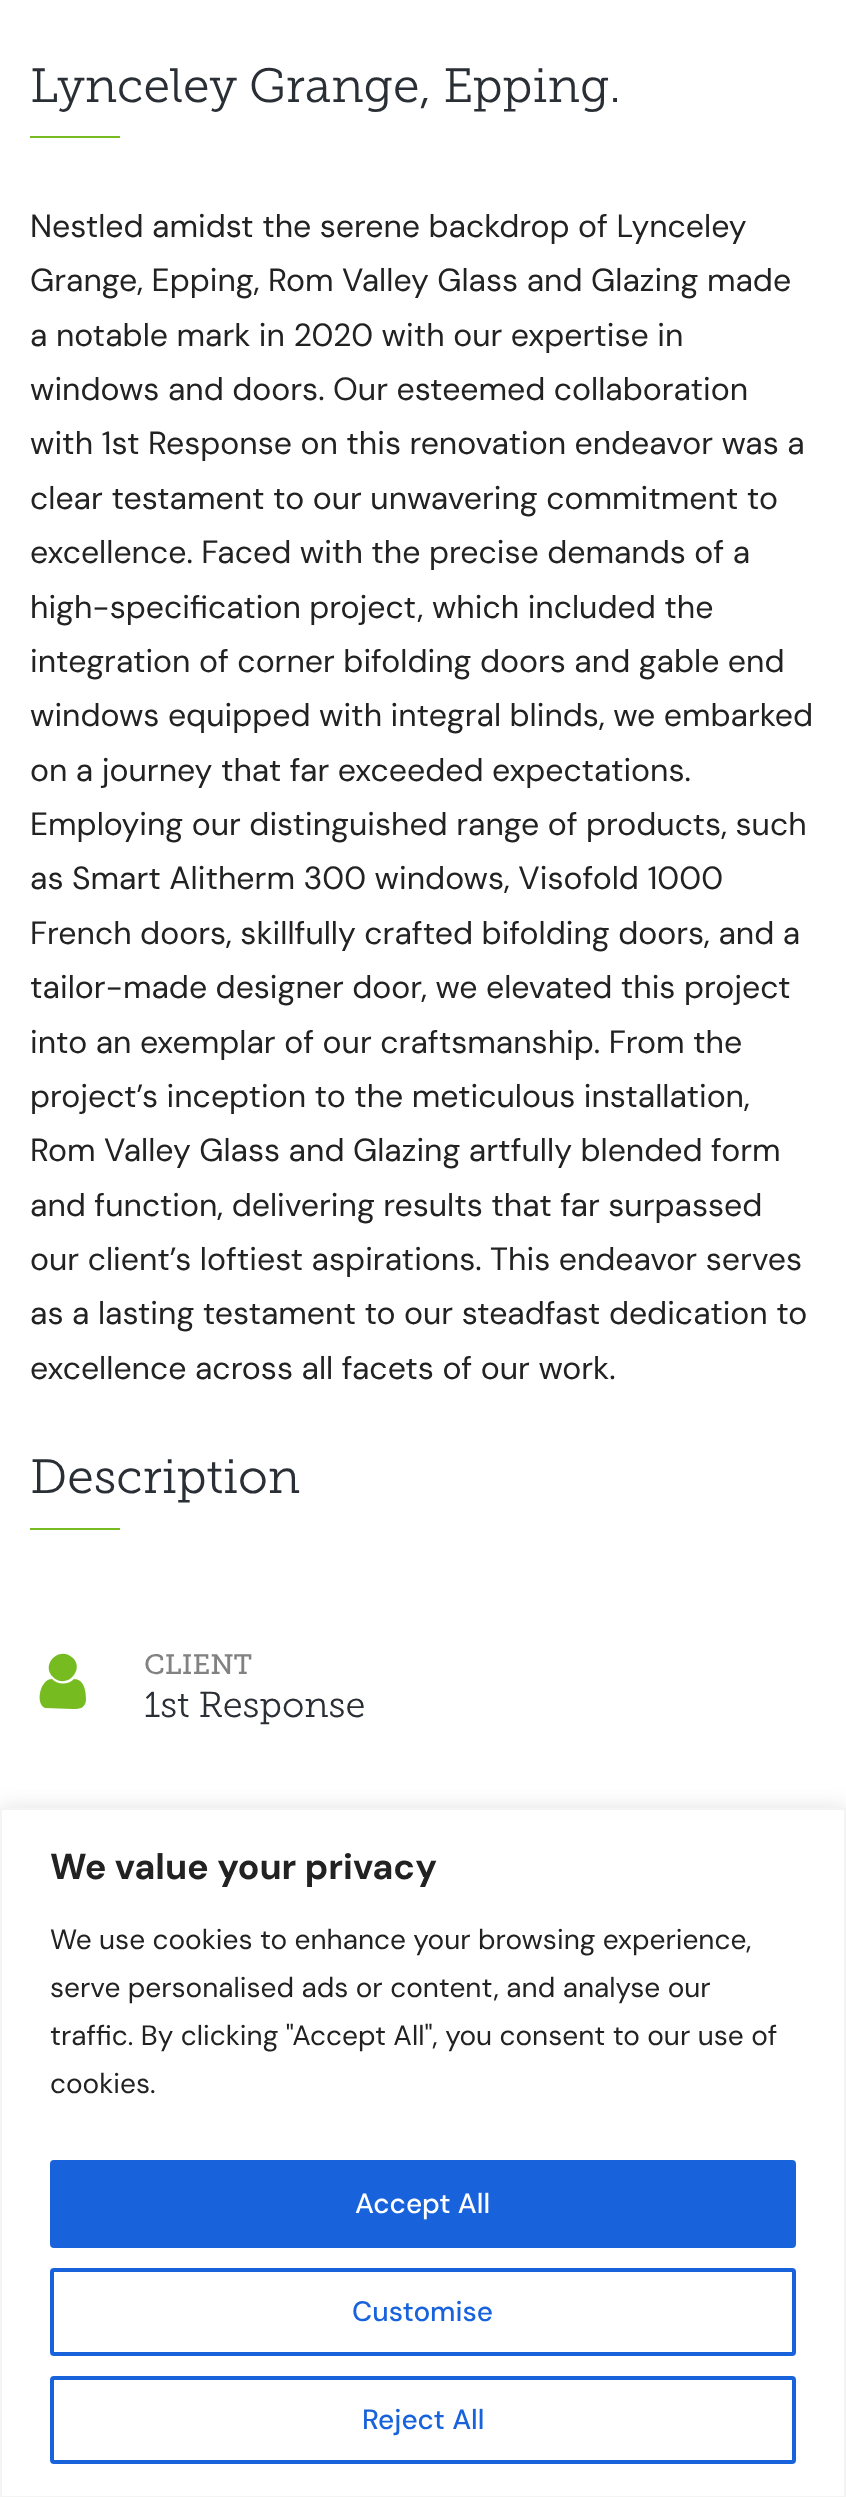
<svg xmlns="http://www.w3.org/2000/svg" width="846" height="2497">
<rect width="100%" height="100%" fill="#fff"/>
<text x="30" y="102" style="font-family:Museo Slab;font-size:48px;fill:#2a2f35">Lynceley Grange, Epping.</text>
<rect x="30" y="136" width="90" height="2" fill="#76bc21"/>
<text x="30" y="237" style="font-family:DM Sans;font-size:32px;fill:#222">Nestled amidst the serene backdrop of Lynceley</text>
<text x="30" y="291" style="font-family:DM Sans;font-size:32px;fill:#222">Grange, Epping, Rom Valley Glass and Glazing made</text>
<text x="30" y="346" style="font-family:DM Sans;font-size:32px;fill:#222">a notable mark in 2020 with our expertise in</text>
<text x="30" y="400" style="font-family:DM Sans;font-size:32px;fill:#222">windows and doors. Our esteemed collaboration</text>
<text x="30" y="454" style="font-family:DM Sans;font-size:32px;fill:#222">with 1st Response on this renovation endeavor was a</text>
<text x="30" y="509" style="font-family:DM Sans;font-size:32px;fill:#222">clear testament to our unwavering commitment to</text>
<text x="30" y="563" style="font-family:DM Sans;font-size:32px;fill:#222">excellence. Faced with the precise demands of a</text>
<text x="30" y="618" style="font-family:DM Sans;font-size:32px;fill:#222">high-specification project, which included the</text>
<text x="30" y="672" style="font-family:DM Sans;font-size:32px;fill:#222">integration of corner bifolding doors and gable end</text>
<text x="30" y="726" style="font-family:DM Sans;font-size:32px;fill:#222">windows equipped with integral blinds, we embarked</text>
<text x="30" y="781" style="font-family:DM Sans;font-size:32px;fill:#222">on a journey that far exceeded expectations.</text>
<text x="30" y="835" style="font-family:DM Sans;font-size:32px;fill:#222">Employing our distinguished range of products, such</text>
<text x="30" y="889" style="font-family:DM Sans;font-size:32px;fill:#222">as Smart Alitherm 300 windows, Visofold 1000</text>
<text x="30" y="944" style="font-family:DM Sans;font-size:32px;fill:#222">French doors, skillfully crafted bifolding doors, and a</text>
<text x="30" y="998" style="font-family:DM Sans;font-size:32px;fill:#222">tailor-made designer door, we elevated this project</text>
<text x="30" y="1053" style="font-family:DM Sans;font-size:32px;fill:#222">into an exemplar of our craftsmanship. From the</text>
<text x="30" y="1107" style="font-family:DM Sans;font-size:32px;fill:#222">project’s inception to the meticulous installation,</text>
<text x="30" y="1161" style="font-family:DM Sans;font-size:32px;fill:#222">Rom Valley Glass and Glazing artfully blended form</text>
<text x="30" y="1216" style="font-family:DM Sans;font-size:32px;fill:#222">and function, delivering results that far surpassed</text>
<text x="30" y="1270" style="font-family:DM Sans;font-size:32px;fill:#222">our client’s loftiest aspirations. This endeavor serves</text>
<text x="30" y="1324" style="font-family:DM Sans;font-size:32px;fill:#222">as a lasting testament to our steadfast dedication to</text>
<text x="30" y="1379" style="font-family:DM Sans;font-size:32px;fill:#222">excellence across all facets of our work.</text>
<text x="30" y="1493" style="font-family:Museo Slab;font-size:48px;fill:#2a2f35">Description</text>
<rect x="30" y="1528" width="90" height="2" fill="#76bc21"/>
<path d="M86 1699c0 9-6 10-13 10l-28-1c-10-4-5-29 7-29c6 6 16 6 22 0c10 0 12 12 12 20zm-13-41c12 12-7 32-20 19c-13-13 7-32 20-19z" fill="#76bc21"/>
<text x="144" y="1674" style="font-family:'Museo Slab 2';font-size:28px;fill:#828282">CLIENT</text>
<text x="144" y="1717" style="font-family:Museo Slab;font-size:36px;fill:#2a2f35">1st Response</text>
<rect y="1806" width="846" height="690" fill="#acabab4d" filter="blur(10px)"/>
<rect x="1" y="1809" width="844" height="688" fill="#fff" stroke="#f4f4f4" stroke-width="2"/>
<text x="50" y="1879" style="font-family:DM Sans;font-size:36px;font-weight:bold;fill:#222">We value your privacy</text>
<text x="50" y="1949" style="font-family:DM Sans;font-size:28px;fill:#222">We use cookies to enhance your browsing experience,</text>
<text x="50" y="1997" style="font-family:DM Sans;font-size:28px;fill:#222">serve personalised ads or content, and analyse our</text>
<text x="50" y="2045" style="font-family:DM Sans;font-size:28px;fill:#222">traffic. By clicking "Accept All", you consent to our use of</text>
<text x="50" y="2093" style="font-family:DM Sans;font-size:28px;fill:#222">cookies.</text>
<rect x="52" y="2162" width="742" height="84" rx="2" fill="#1863dc" stroke="#1863dc" stroke-width="4"/>
<text x="355" y="2213" style="font-family:DM Sans;font-size:28px;font-weight:500;fill:#fff">Accept All</text>
<rect x="52" y="2270" width="742" height="84" rx="2" fill="none" stroke="#1863dc" stroke-width="4"/>
<text x="352" y="2321" style="font-family:DM Sans;font-size:28px;font-weight:500;fill:#1863dc">Customise</text>
<rect x="52" y="2378" width="742" height="84" rx="2" fill="none" stroke="#1863dc" stroke-width="4"/>
<text x="362" y="2429" style="font-family:DM Sans;font-size:28px;font-weight:500;fill:#1863dc">Reject All</text>
</svg>
